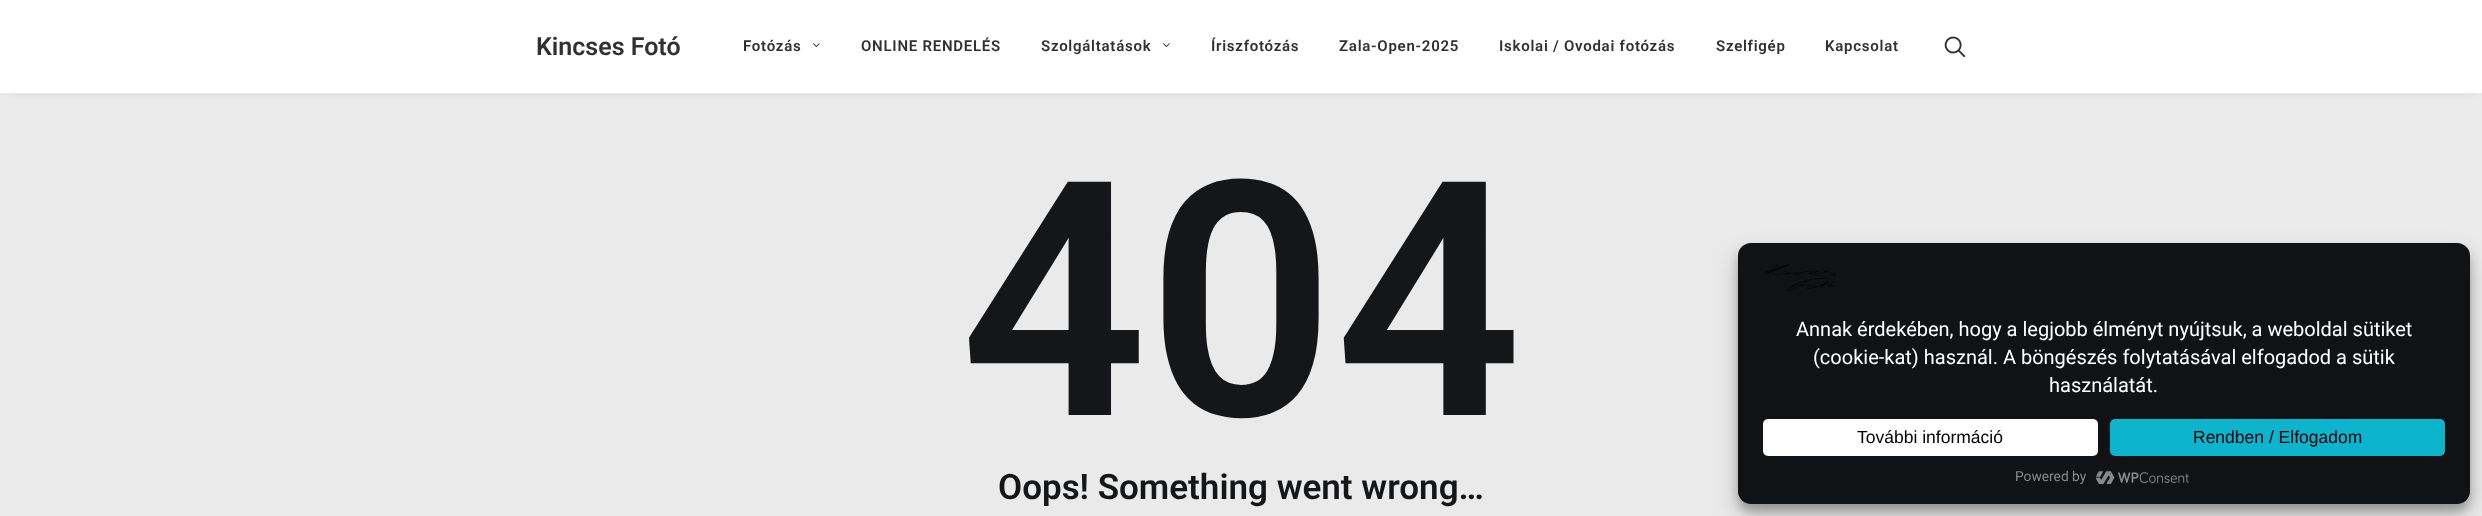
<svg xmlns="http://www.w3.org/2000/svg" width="2482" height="516">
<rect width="100%" height="100%" fill="#eaeaea"/>
<rect x="9" y="18" width="2465" height="68" fill="#00000099" filter="blur(6px)"/>
<rect width="2482" height="93" fill="#fff"/>
<rect y="93" width="2482" height="1" fill="#eaeaea"/>
<text x="536" y="55" style="font-family:Roboto;font-size:25px;font-weight:600;fill:#303133">Kincses Fotó</text>
<text x="743" y="51" style="font-family:Roboto;font-size:15px;font-weight:600;letter-spacing:0.75px;fill:#303133">Fotózás</text>
<image x="813" y="43" width="7" height="5" href="media/1.png"/>
<text x="861" y="51" style="font-family:Roboto;font-size:15px;font-weight:600;letter-spacing:0.75px;fill:#303133">ONLINE RENDELÉS</text>
<text x="1041" y="51" style="font-family:Roboto;font-size:15px;font-weight:600;letter-spacing:0.75px;fill:#303133">Szolgáltatások</text>
<image x="1163" y="43" width="7" height="5" href="media/1.png"/>
<text x="1211" y="51" style="font-family:Roboto;font-size:15px;font-weight:600;letter-spacing:0.75px;fill:#303133">Íriszfotózás</text>
<text x="1339" y="51" style="font-family:Roboto;font-size:15px;font-weight:600;letter-spacing:0.75px;fill:#303133">Zala-Open-2025</text>
<text x="1499" y="51" style="font-family:Roboto;font-size:15px;font-weight:600;letter-spacing:0.75px;fill:#303133">Iskolai / Ovodai fotózás</text>
<text x="1716" y="51" style="font-family:Roboto;font-size:15px;font-weight:600;letter-spacing:0.75px;fill:#303133">Szelfigép</text>
<text x="1825" y="51" style="font-family:Roboto;font-size:15px;font-weight:600;letter-spacing:0.75px;fill:#303133">Kapcsolat</text>
<image x="1944" y="36" width="22" height="22" href="media/2.png"/>
<text x="960" y="415" style="font-family:Roboto;font-size:328px;font-weight:600;fill:#141618">404</text>
<text x="998" y="499" style="font-family:Roboto;font-size:35px;font-weight:600;fill:#141618">Oops! Something went wrong…</text>
<rect x="1738" y="250" width="732" height="261" rx="13" fill="#0000003b" filter="blur(4px)"/>
<rect x="1738" y="255" width="732" height="261" rx="13" fill="#00000030" filter="blur(12.5px)"/>
<rect x="1738" y="243" width="732" height="261" rx="13" fill="#101213"/>
<image x="1764" y="264" width="72" height="27" href="media/3.png"/>
<text x="1796" y="336" style="font-family:Roboto;font-size:20px;fill:#fff">Annak érdekében, hogy a legjobb élményt nyújtsuk, a weboldal sütiket</text>
<text x="1813" y="364" style="font-family:Roboto;font-size:20px;fill:#fff">(cookie-kat) használ. A böngészés folytatásával elfogadod a sütik</text>
<text x="2049" y="392" style="font-family:Roboto;font-size:20px;fill:#fff">használatát.</text>
<rect x="1763" y="419" width="335" height="37" rx="5" fill="#fff"/>
<text x="1857" y="443" style="font-family:Liberation Sans;font-size:17.5px;fill:#000">További információ</text>
<rect x="2110" y="419" width="335" height="37" rx="5" fill="#0cb4ce"/>
<text x="2193" y="443" style="font-family:Liberation Sans;font-size:17.5px;fill:#000">Rendben / Elfogadom</text>
<text x="2015" y="481" style="font-family:Roboto;font-size:13.75px;fill:#888989">Powered by</text>
<image x="2096" y="471" width="93" height="13" href="media/4.png"/>
</svg>
